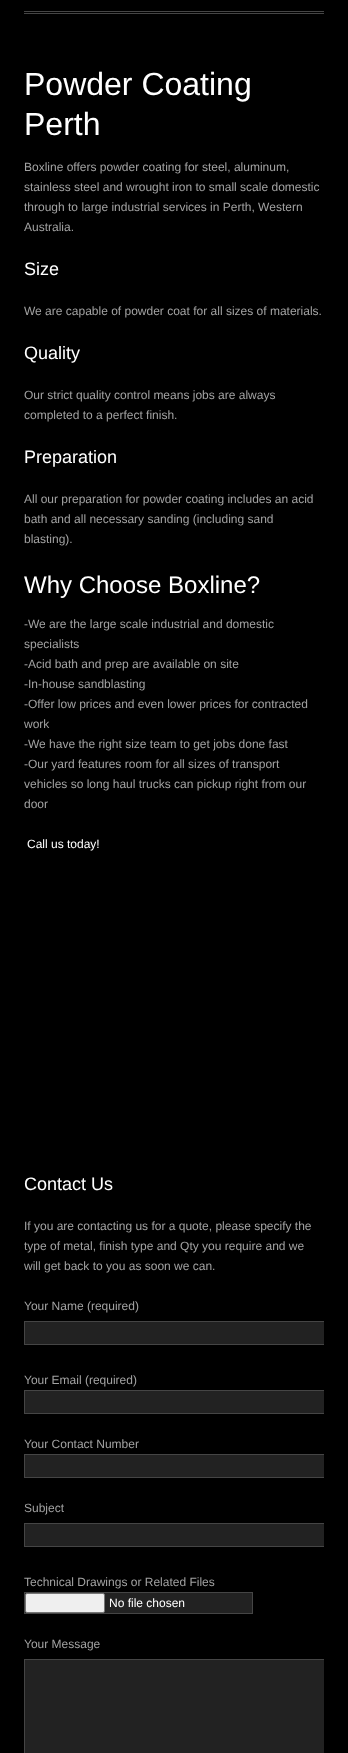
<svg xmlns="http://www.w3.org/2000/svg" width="348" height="1753">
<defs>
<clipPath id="clip1"><rect x="24" y="1172" width="300" height="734"/></clipPath>
</defs>
<rect width="100%" height="100%" fill="#000"/>
<rect x="24" y="11" width="300" height="1" fill="#454545"/>
<rect x="24" y="13" width="300" height="1" fill="#454545"/>
<text x="24" y="95" style="font-family:Liberation Sans;font-size:32px;fill:#fff">Powder Coating</text>
<text x="24" y="135" style="font-family:Liberation Sans;font-size:32px;fill:#fff">Perth</text>
<text x="24" y="171" style="font-family:Liberation Sans;font-size:12px;fill:#a2a2a2">Boxline offers powder coating for steel, aluminum,</text>
<text x="24" y="191" style="font-family:Liberation Sans;font-size:12px;fill:#a2a2a2">stainless steel and wrought iron to small scale domestic</text>
<text x="24" y="211" style="font-family:Liberation Sans;font-size:12px;fill:#a2a2a2">through to large industrial services in Perth, Western</text>
<text x="24" y="231" style="font-family:Liberation Sans;font-size:12px;fill:#a2a2a2">Australia.</text>
<text x="24" y="275" style="font-family:Liberation Sans;font-size:18px;fill:#fff">Size</text>
<text x="24" y="315" style="font-family:Liberation Sans;font-size:12px;fill:#a2a2a2">We are capable of powder coat for all sizes of materials.</text>
<text x="24" y="359" style="font-family:Liberation Sans;font-size:18px;fill:#fff">Quality</text>
<text x="24" y="399" style="font-family:Liberation Sans;font-size:12px;fill:#a2a2a2">Our strict quality control means jobs are always</text>
<text x="24" y="419" style="font-family:Liberation Sans;font-size:12px;fill:#a2a2a2">completed to a perfect finish.</text>
<text x="24" y="463" style="font-family:Liberation Sans;font-size:18px;fill:#fff">Preparation</text>
<text x="24" y="503" style="font-family:Liberation Sans;font-size:12px;fill:#a2a2a2">All our preparation for powder coating includes an acid</text>
<text x="24" y="523" style="font-family:Liberation Sans;font-size:12px;fill:#a2a2a2">bath and all necessary sanding (including sand</text>
<text x="24" y="543" style="font-family:Liberation Sans;font-size:12px;fill:#a2a2a2">blasting).</text>
<text x="24" y="593" style="font-family:Liberation Sans;font-size:24px;fill:#fff">Why Choose Boxline?</text>
<text x="24" y="628" style="font-family:Liberation Sans;font-size:12px;fill:#a2a2a2">-We are the large scale industrial and domestic</text>
<text x="24" y="648" style="font-family:Liberation Sans;font-size:12px;fill:#a2a2a2">specialists</text>
<text x="24" y="668" style="font-family:Liberation Sans;font-size:12px;fill:#a2a2a2">-Acid bath and prep are available on site</text>
<text x="24" y="688" style="font-family:Liberation Sans;font-size:12px;fill:#a2a2a2">-In-house sandblasting</text>
<text x="24" y="708" style="font-family:Liberation Sans;font-size:12px;fill:#a2a2a2">-Offer low prices and even lower prices for contracted</text>
<text x="24" y="728" style="font-family:Liberation Sans;font-size:12px;fill:#a2a2a2">work</text>
<text x="24" y="748" style="font-family:Liberation Sans;font-size:12px;fill:#a2a2a2">-We have the right size team to get jobs done fast</text>
<text x="24" y="768" style="font-family:Liberation Sans;font-size:12px;fill:#a2a2a2">-Our yard features room for all sizes of transport</text>
<text x="24" y="788" style="font-family:Liberation Sans;font-size:12px;fill:#a2a2a2">vehicles so long haul trucks can pickup right from our</text>
<text x="24" y="808" style="font-family:Liberation Sans;font-size:12px;fill:#a2a2a2">door</text>
<text x="27" y="848" style="font-family:Liberation Sans;font-size:12px;fill:#fff">Call us today!</text>
<text x="24" y="1190" style="font-family:Liberation Sans;font-size:18px;fill:#fff">Contact Us</text>
<text x="24" y="1230" style="font-family:Liberation Sans;font-size:12px;fill:#a2a2a2">If you are contacting us for a quote, please specify the</text>
<text x="24" y="1250" style="font-family:Liberation Sans;font-size:12px;fill:#a2a2a2">type of metal, finish type and Qty you require and we</text>
<text x="24" y="1270" style="font-family:Liberation Sans;font-size:12px;fill:#a2a2a2">will get back to you as soon we can.</text>
<text x="24" y="1310" style="font-family:Liberation Sans;font-size:12px;fill:#a2a2a2">Your Name (required)</text>
<rect x="25" y="1322" width="299" height="22" fill="#222"/>
<g clip-path="url(#clip1)">
<rect x="24.5" y="1321.5" width="300" height="23" fill="none" stroke="#454545"/>
</g>
<text x="24" y="1384" style="font-family:Liberation Sans;font-size:12px;fill:#a2a2a2">Your Email (required)</text>
<rect x="25" y="1391" width="299" height="22" fill="#222"/>
<g clip-path="url(#clip1)">
<rect x="24.5" y="1390.5" width="300" height="23" fill="none" stroke="#454545"/>
</g>
<text x="24" y="1448" style="font-family:Liberation Sans;font-size:12px;fill:#a2a2a2">Your Contact Number</text>
<rect x="25" y="1455" width="299" height="22" fill="#222"/>
<g clip-path="url(#clip1)">
<rect x="24.5" y="1454.5" width="300" height="23" fill="none" stroke="#454545"/>
</g>
<text x="24" y="1512" style="font-family:Liberation Sans;font-size:12px;fill:#a2a2a2">Subject</text>
<rect x="25" y="1524" width="299" height="22" fill="#222"/>
<g clip-path="url(#clip1)">
<rect x="24.5" y="1523.5" width="300" height="23" fill="none" stroke="#454545"/>
</g>
<text x="24" y="1586" style="font-family:Liberation Sans;font-size:12px;fill:#a2a2a2">Technical Drawings or Related Files</text>
<rect x="24.5" y="1592.5" width="228" height="21" fill="#222" stroke="#454545"/>
<rect x="25.5" y="1593.5" width="79" height="19" rx="1.5" fill="#efefef" stroke="#767676"/>
<text x="109" y="1607" style="font-family:Liberation Sans;font-size:12px;fill:#fff">No file chosen</text>
<text x="24" y="1648" style="font-family:Liberation Sans;font-size:12px;fill:#a2a2a2">Your Message</text>
<rect x="25" y="1660" width="299" height="93" fill="#222"/>
<g clip-path="url(#clip1)">
<rect x="24.5" y="1659.5" width="300" height="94" fill="none" stroke="#454545"/>
</g>
</svg>
